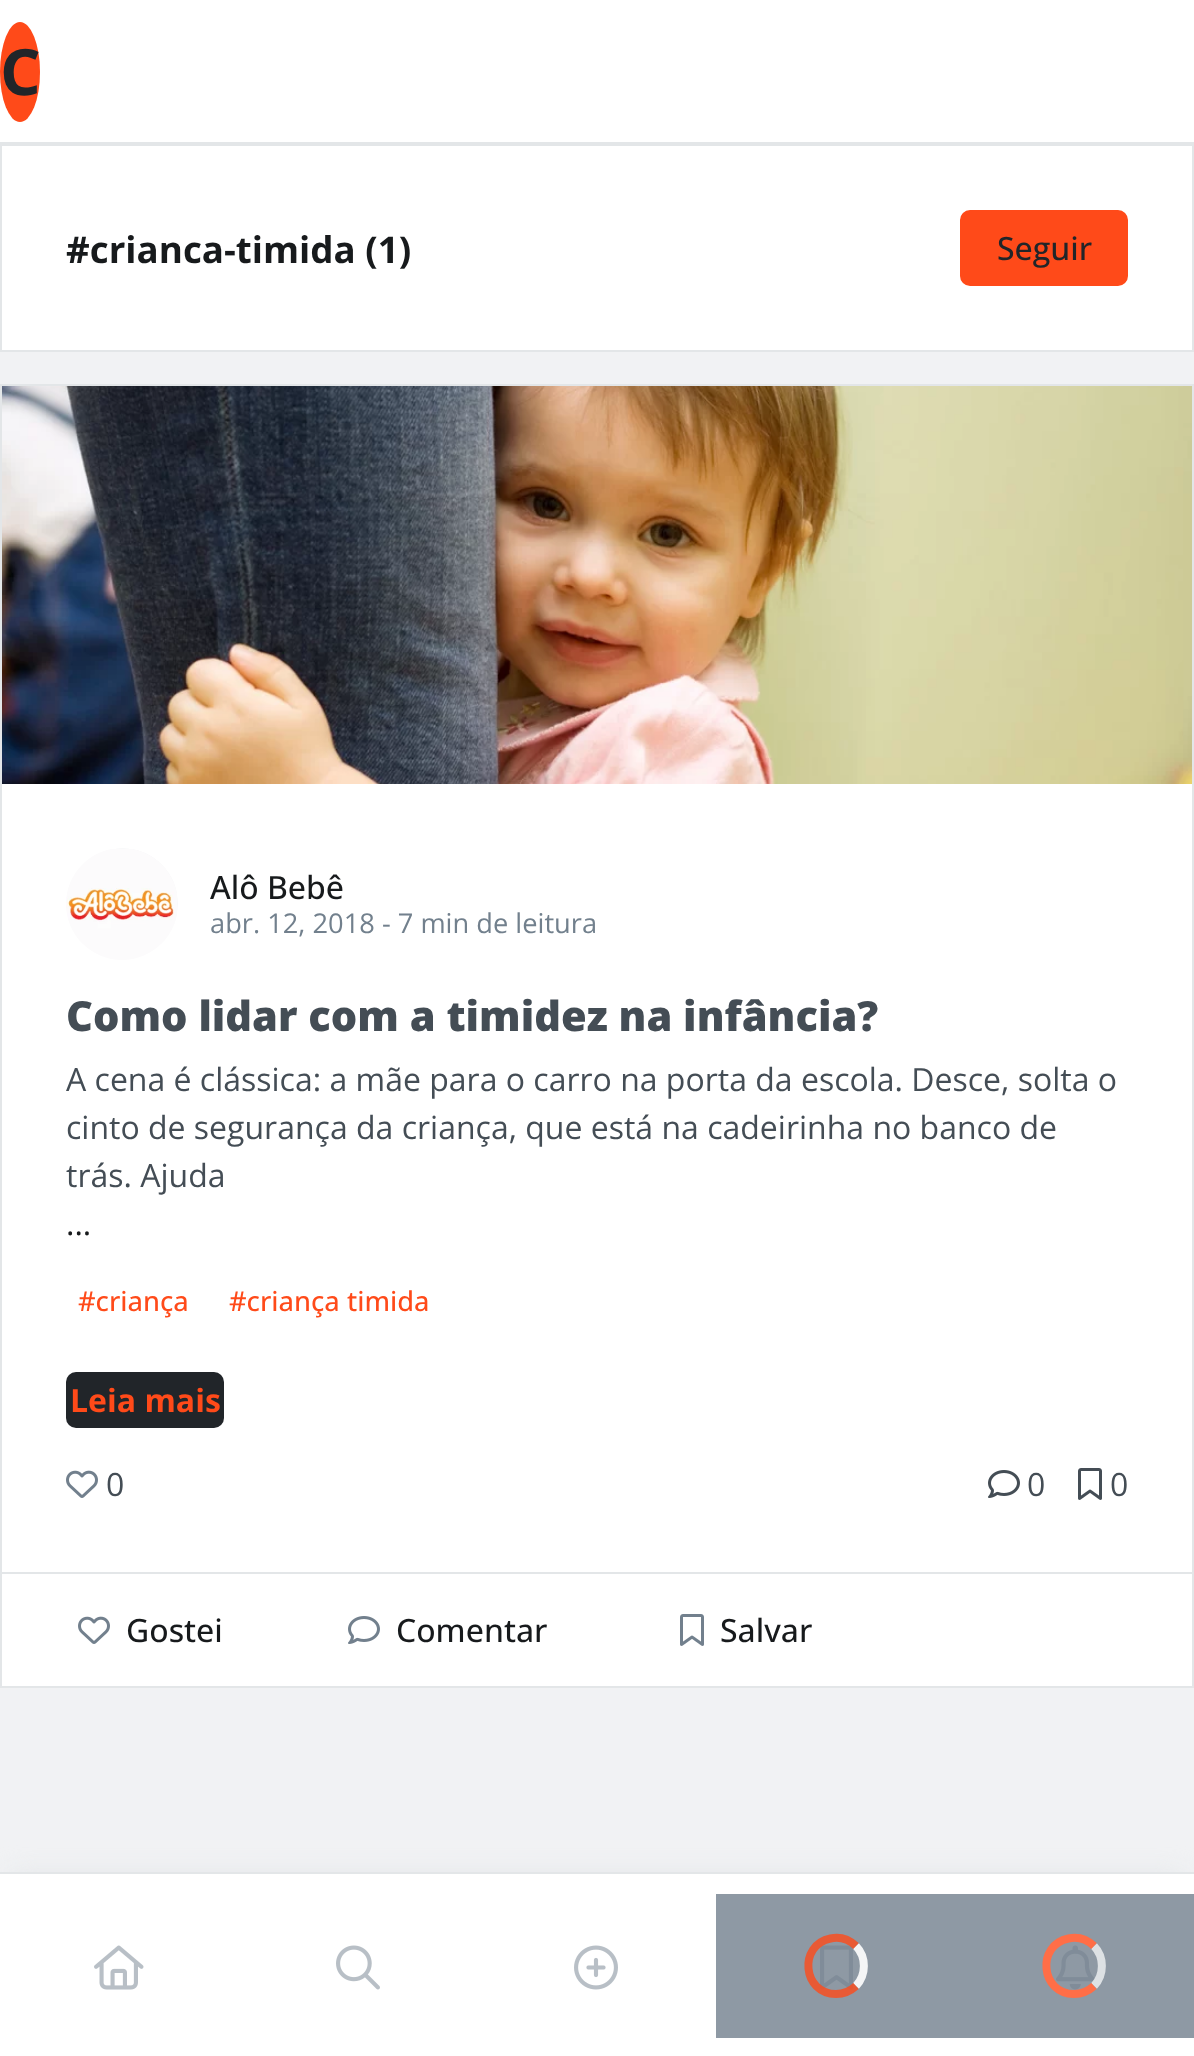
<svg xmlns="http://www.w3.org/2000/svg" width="1194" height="2056">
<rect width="100%" height="100%" fill="#f1f2f4"/>
<rect width="1194" height="142" fill="#fff"/>
<rect y="142" width="1194" height="2" fill="#e3e6e8"/>
<ellipse cx="20" cy="72" rx="20" ry="50" fill="#ff4a19"/>
<text x="0" y="95" style="font-family:Open Sans;font-size:64px;font-weight:bold;fill:#212529">C</text>
<rect x="1" y="145" width="1192" height="206" fill="#fff" stroke="#e3e6e8" stroke-width="2"/>
<text x="66" y="263" style="font-family:Open Sans;font-size:36.75px;font-weight:bold;fill:#171a1c">#crianca-timida (1)</text>
<rect x="962" y="212" width="164" height="72" rx="8" fill="#ff4a19" stroke="#ff4a19" stroke-width="4"/>
<text x="997" y="260" style="font-family:Open Sans;font-size:32px;font-weight:500;fill:#212529">Seguir</text>
<rect x="2" y="784" width="1190" height="902" fill="#fff"/>
<rect x="1" y="385" width="1192" height="1302" fill="none" stroke="#e3e6e8" stroke-width="2"/>
<image x="2" y="386" width="1190" height="398" href="media/1.png"/>
<path d="M72 903.5c0-28 22.5-50.5 50.5-50.5c28 0 50.5 22.5 50.5 50.5c0 28-22.5 50.5-50.5 50.5c-28 0-50.5-22.5-50.5-50.5z" fill="none" stroke="#f1f2f4" stroke-width="9"/>
<image x="66" y="849" width="111" height="111" href="media/2.png"/>
<text x="210" y="899" style="font-family:Open Sans;font-size:32px;font-weight:500;fill:#171a1c">Alô Bebê</text>
<text x="210" y="933" style="font-family:Open Sans;font-size:27.25px;fill:#72808d">abr. 12, 2018 - 7 min de leitura</text>
<text x="66" y="1031" style="font-family:Open Sans;font-size:41.6px;font-weight:800;fill:#444d55">Como lidar com a timidez na infância?</text>
<text x="66" y="1091" style="font-family:Open Sans;font-size:32px;fill:#444d55">A cena é clássica: a mãe para o carro na porta da escola. Desce, solta o</text>
<text x="66" y="1139" style="font-family:Open Sans;font-size:32px;fill:#444d55">cinto de segurança da criança, que está na cadeirinha no banco de</text>
<text x="66" y="1187" style="font-family:Open Sans;font-size:32px;fill:#444d55">trás. Ajuda</text>
<text x="66" y="1235" style="font-family:Open Sans;font-size:32px;fill:#171a1c">...</text>
<text x="78" y="1311" style="font-family:Open Sans;font-size:27.25px;font-weight:500;fill:#ff4a19">#criança</text>
<text x="229" y="1311" style="font-family:Open Sans;font-size:27.25px;font-weight:500;fill:#ff4a19">#criança timida</text>
<rect x="66" y="1372" width="158" height="56" rx="10" fill="#212529"/>
<text x="70" y="1412" style="font-family:Open Sans;font-size:32px;font-weight:bold;fill:#ff4a19">Leia mais</text>
<image x="66" y="1470" width="32" height="28" href="media/3.png"/>
<text x="106" y="1496" style="font-family:Open Sans;font-size:32px;fill:#444d55">0</text>
<image x="988" y="1470" width="32" height="28" href="media/4.png"/>
<text x="1027" y="1496" style="font-family:Open Sans;font-size:32px;fill:#444d55">0</text>
<image x="1078" y="1468" width="24" height="32" href="media/5.png"/>
<text x="1110" y="1496" style="font-family:Open Sans;font-size:32px;fill:#444d55">0</text>
<rect x="2" y="1572" width="1190" height="2" fill="#e3e6e8"/>
<image x="78" y="1616" width="32" height="28" href="media/3.png"/>
<text x="126" y="1642" style="font-family:Open Sans;font-size:32px;font-weight:500;fill:#171a1c">Gostei</text>
<image x="348" y="1616" width="32" height="28" href="media/6.png"/>
<text x="396" y="1642" style="font-family:Open Sans;font-size:32px;font-weight:500;fill:#171a1c">Comentar</text>
<image x="680" y="1614" width="24" height="32" href="media/7.png"/>
<text x="720" y="1642" style="font-family:Open Sans;font-size:32px;font-weight:500;fill:#171a1c">Salvar</text>
<rect x="10" y="1874" width="1174" height="164" fill="#e3e6e8" filter="blur(12px)"/>
<rect y="1874" width="1194" height="182" fill="#fff"/>
<rect x="716" y="1894" width="478" height="144" fill="#8e99a4"/>
<rect y="1872" width="1194" height="2" fill="#e3e6e8"/>
<image x="94" y="1945" width="50" height="45" href="media/8.png"/>
<image x="336" y="1945" width="44" height="45" href="media/9.png"/>
<image x="574" y="1945" width="44" height="45" href="media/10.png"/>
<path d="M856 1946c10.5 11 10.5 29 0 40" fill="none" stroke="#f4f5f6" stroke-width="8"/>
<image x="820" y="1945" width="33" height="45" href="media/11.png"/>
<path d="M856 1986c-5.5 5-12.5 8-20 8c-33.5 0-38-49-5.5-55.5c9-2 18.5 1 25.5 7.5" fill="none" stroke="#ff4a19cc" stroke-width="8"/>
<image x="1056" y="1945" width="39" height="45" href="media/12.png"/>
<path d="M1094 1946c10.5 11 10.5 29 0 40" fill="none" stroke="#f1f2f4cc" stroke-width="8"/>
<path d="M1094 1986c-5.5 5-12.5 8-20 8c-33.5 0-38-49-5.5-55.5c9-2 18.5 1 25.5 7.5" fill="none" stroke="#ff6e47" stroke-width="8"/>
</svg>
